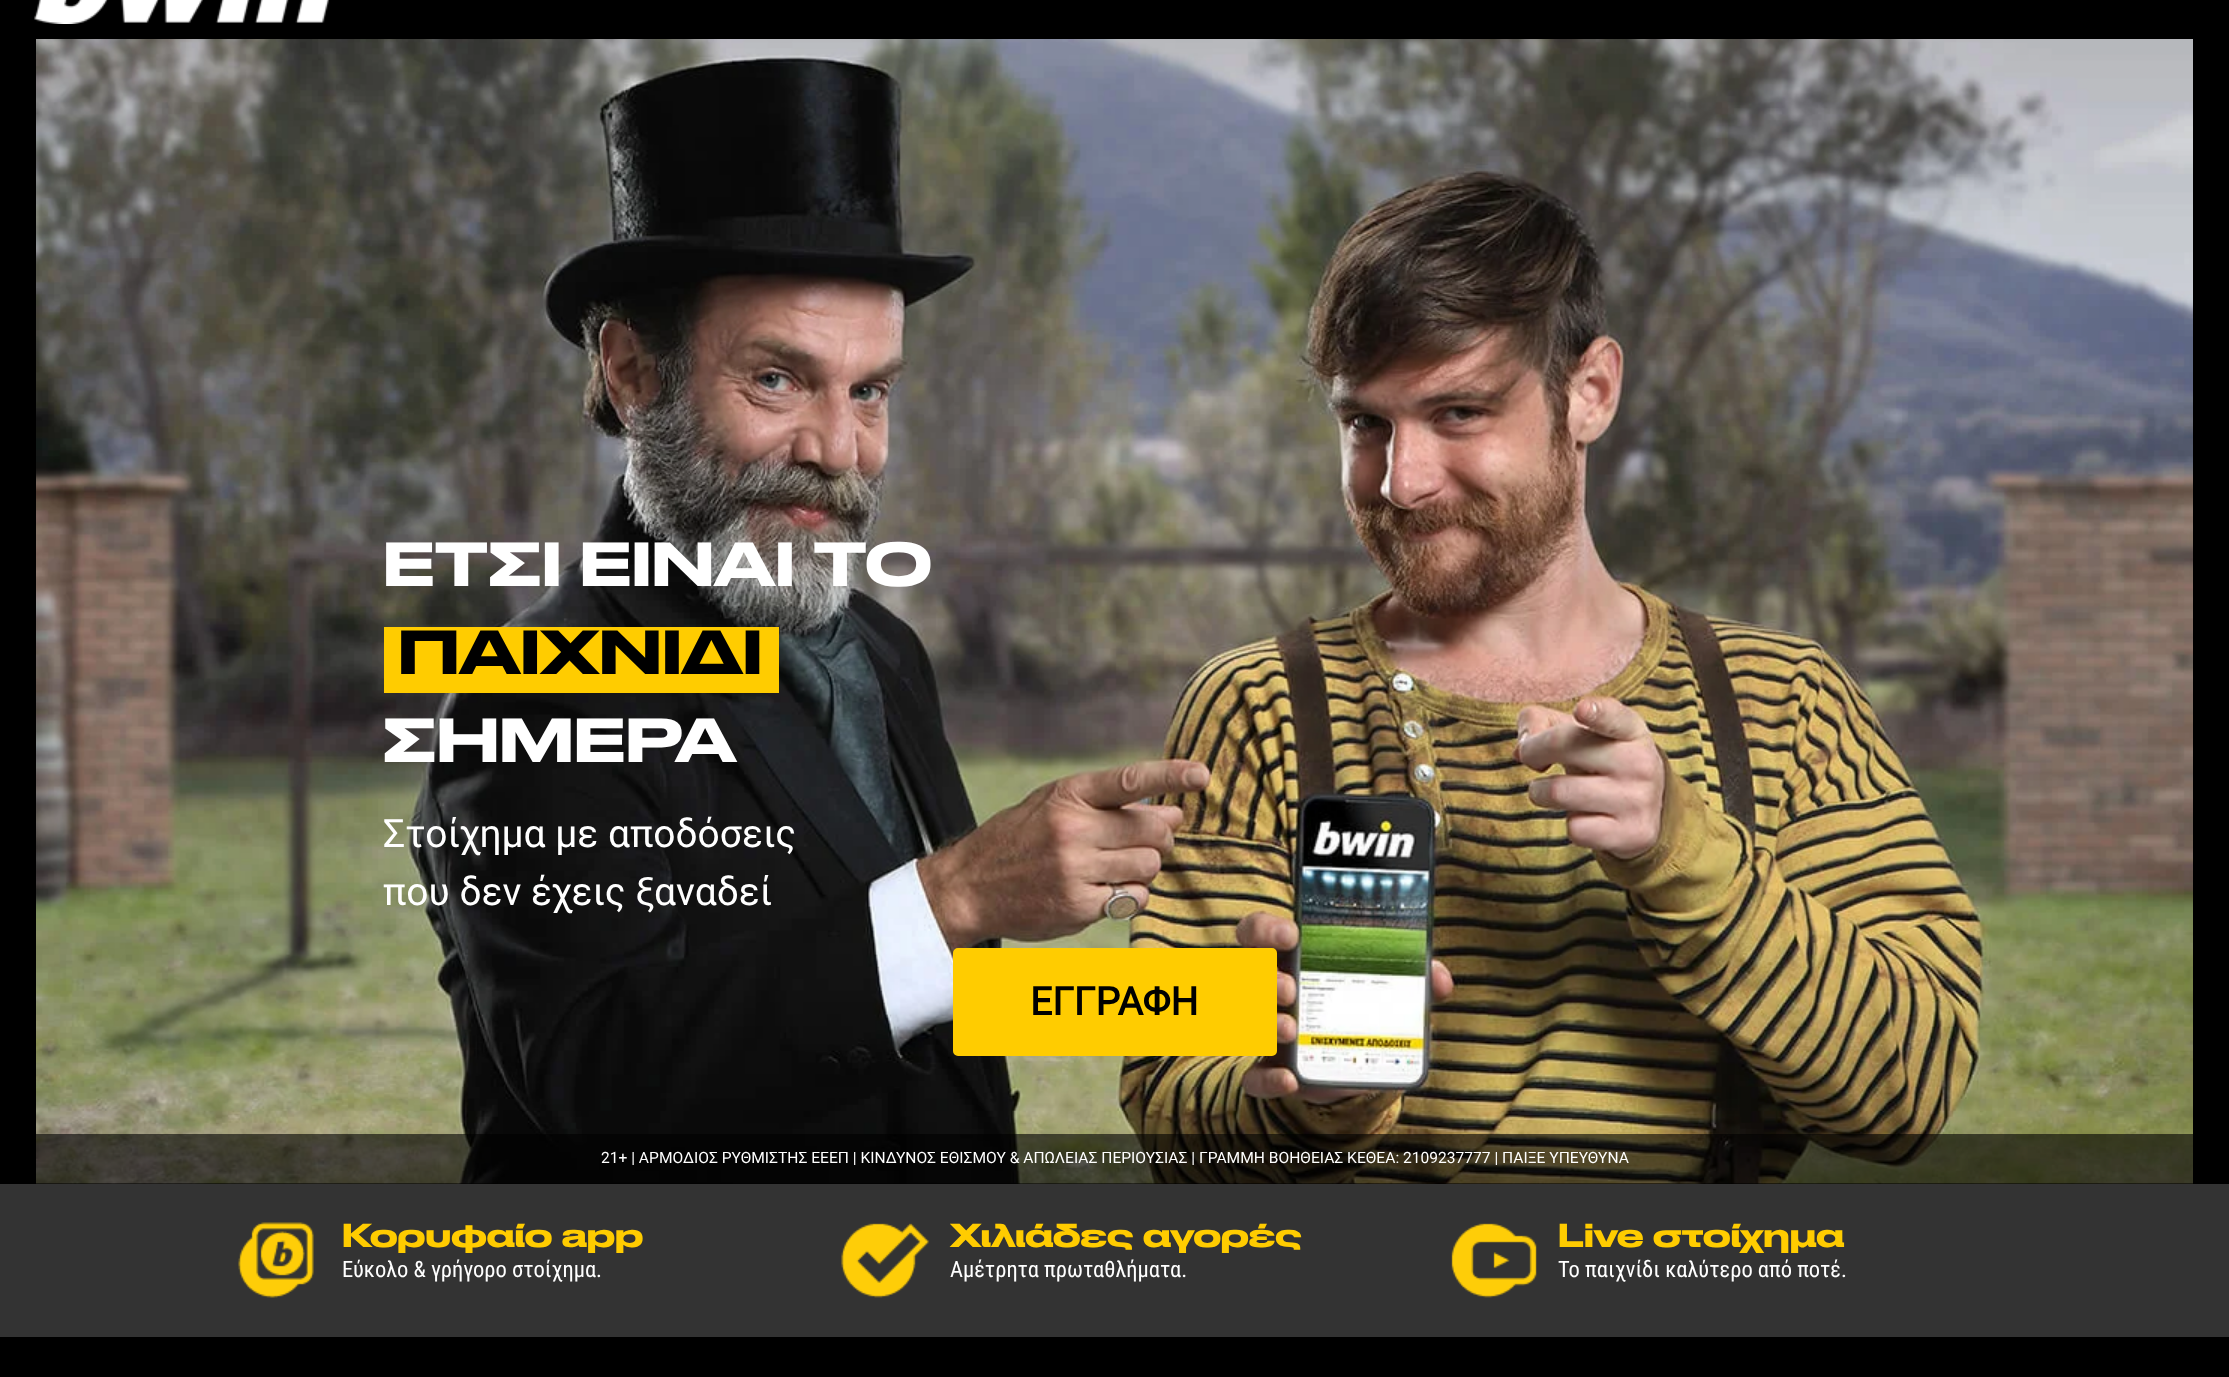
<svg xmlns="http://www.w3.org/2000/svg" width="2229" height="1377">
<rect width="100%" height="100%" fill="#000"/>
<image x="34" y="0" width="295" height="24" href="media/1.png"/>
<image x="36" y="39" width="2157" height="1145" href="media/2.png"/>
<text x="383" y="586" style="font-family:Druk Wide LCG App;font-size:58.5px;font-weight:500;fill:#fff">ΕΤΣΙ ΕΙΝΑΙ ΤΟ</text>
<rect x="384" y="627" width="395" height="66" fill="#fc0"/>
<text x="398" y="674" style="font-family:Druk Wide LCG App;font-size:58.5px;font-weight:500;fill:#000">ΠΑΙΧΝΙΔΙ</text>
<text x="383" y="762" style="font-family:Druk Wide LCG App;font-size:58.5px;font-weight:500;fill:#fff">ΣΗΜΕΡΑ</text>
<text x="383" y="847" style="font-family:Roboto;font-size:39px;fill:#fff">Στοίχημα με αποδόσεις</text>
<text x="383" y="905" style="font-family:Roboto;font-size:39px;fill:#fff">που δεν έχεις ξαναδεί</text>
<rect x="954.5" y="949.5" width="321" height="105" rx="3.5" fill="#fc0" stroke="#fc0" stroke-width="3"/>
<text x="1030" y="1015" style="font-family:Roboto;font-size:39px;font-weight:bold;fill:#000">ΕΓΓΡΑΦΗ</text>
<rect x="36" y="1134" width="2157" height="50" fill="#00000099"/>
<text x="601" y="1163" style="font-family:Roboto;font-size:15.6px;fill:#fff">21+ | ΑΡΜΟΔΙΟΣ ΡΥΘΜΙΣΤΗΣ ΕΕΕΠ | ΚΙΝΔΥΝΟΣ ΕΘΙΣΜΟΥ &amp; ΑΠΩΛΕΙΑΣ ΠΕΡΙΟΥΣΙΑΣ | ΓΡΑΜΜΗ ΒΟΗΘΕΙΑΣ ΚΕΘΕΑ: 2109237777 | ΠΑΙΞΕ ΥΠΕΥΘΥΝΑ</text>
<rect y="1184" width="2229" height="153" fill="#333"/>
<image x="238" y="1222" width="76" height="76" href="media/3.png"/>
<text x="342" y="1247" style="font-family:Druk Wide LCG App;font-size:31.25px;font-weight:500;fill:#fc0">Κορυφαίο app</text>
<text x="342" y="1277" style="font-family:Roboto Condensed;font-size:22.5px;fill:#fff">Εύκολο &amp; γρήγορο στοίχημα.</text>
<image x="841" y="1223" width="88" height="75" href="media/4.png"/>
<text x="950" y="1247" style="font-family:Druk Wide LCG App;font-size:31.25px;font-weight:500;fill:#fc0">Χιλιάδες αγορές</text>
<text x="950" y="1277" style="font-family:Roboto Condensed;font-size:22.5px;fill:#fff">Αμέτρητα πρωταθλήματα.</text>
<image x="1451" y="1223" width="86" height="75" href="media/5.png"/>
<text x="1558" y="1247" style="font-family:Druk Wide LCG App;font-size:31.25px;font-weight:500;fill:#fc0">Live στοίχημα</text>
<text x="1558" y="1277" style="font-family:Roboto Condensed;font-size:22.5px;fill:#fff">Το παιχνίδι καλύτερο από ποτέ.</text>
</svg>
